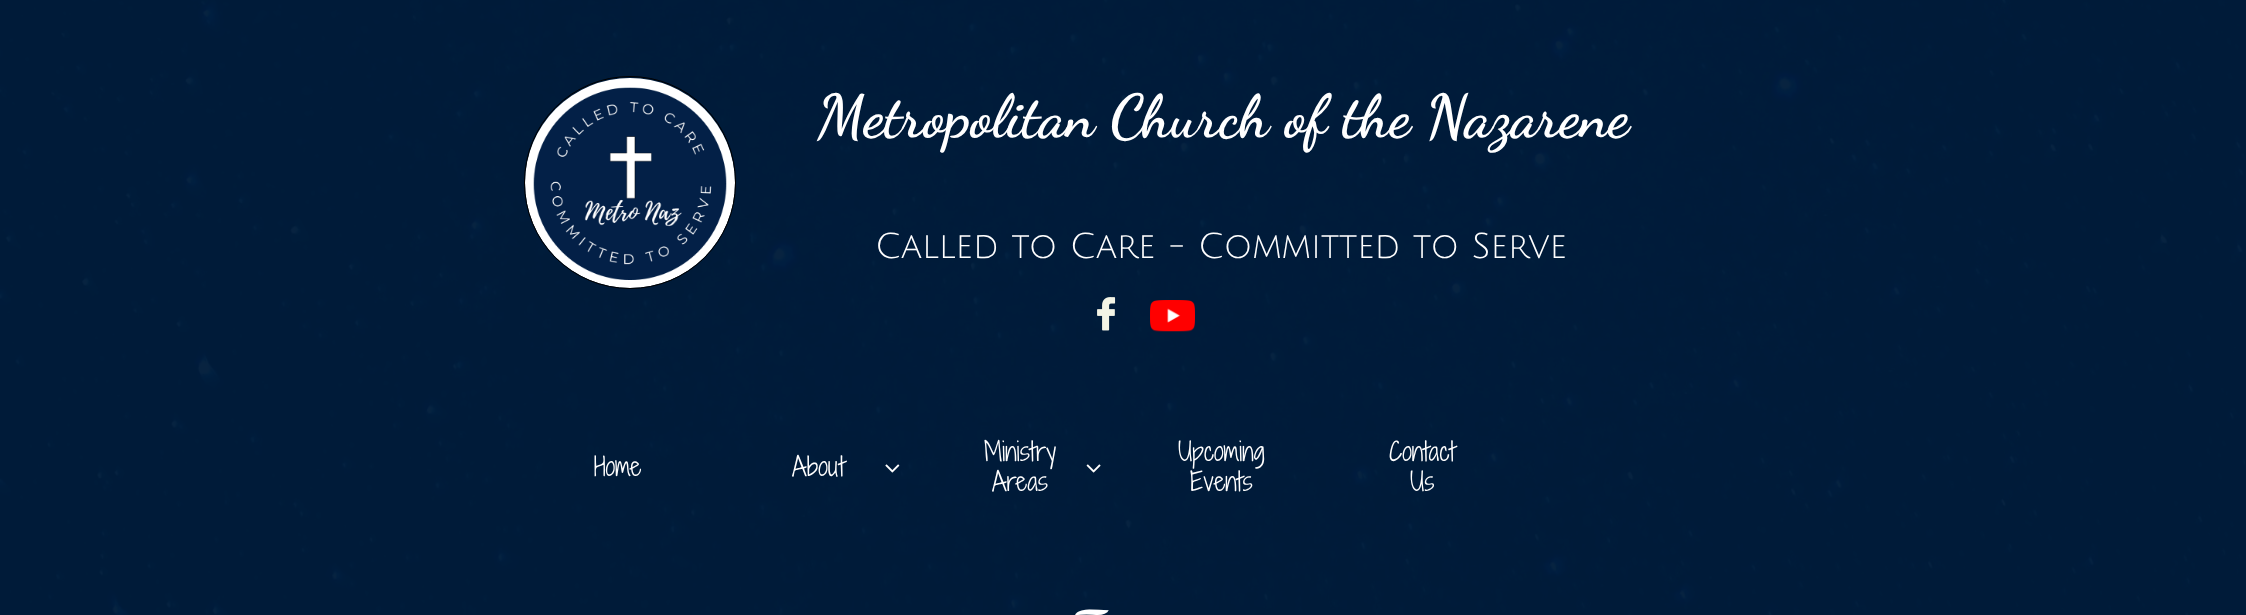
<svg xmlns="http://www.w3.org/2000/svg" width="2246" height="615">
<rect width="100%" height="100%" fill="#001c3a"/>
<image x="0" y="0" width="2245" height="615" href="media/1.png"/>
<circle cx="630" cy="183" r="105" fill="#fff"/>
<rect x="524.5" y="76.5" width="211" height="212" rx="105.5" fill="none" stroke="#000"/>
<rect x="536.5" y="89.5" width="187" height="186" rx="93" fill="none" stroke="#b5b89e"/>
<image x="533" y="87" width="194" height="193" href="media/2.png"/>
<text x="817" y="136" style="font-family:Dancing Script;font-size:60px;font-weight:bold;fill:#fff">Metropolitan Church of the Nazarene</text>
<text x="875" y="258" style="font-family:Julius Sans One;font-size:35px;fill:#fff">Called to Care - Committed to Serve</text>
<image x="1097" y="297" width="19" height="34" href="media/3.png"/>
<image x="1150" y="300" width="45" height="32" href="media/4.png"/>
<text x="594" y="476" style="font-family:Shadows Into Light;font-size:25px;font-weight:300;fill:#fff">Home</text>
<text x="792" y="476" style="font-family:Shadows Into Light;font-size:25px;font-weight:300;fill:#fff">About</text>
<image x="885" y="464" width="15" height="9" href="media/5.png"/>
<text x="984" y="461" style="font-family:Shadows Into Light;font-size:25px;font-weight:300;fill:#fff">Ministry</text>
<text x="992" y="491" style="font-family:Shadows Into Light;font-size:25px;font-weight:300;fill:#fff">Areas</text>
<image x="1086" y="464" width="15" height="9" href="media/6.png"/>
<text x="1178" y="461" style="font-family:Shadows Into Light;font-size:25px;font-weight:300;fill:#fff">Upcoming</text>
<text x="1190" y="491" style="font-family:Shadows Into Light;font-size:25px;font-weight:300;fill:#fff">Events</text>
<text x="1389" y="461" style="font-family:Shadows Into Light;font-size:25px;font-weight:300;fill:#fff">Contact</text>
<text x="1410" y="491" style="font-family:Shadows Into Light;font-size:25px;font-weight:300;fill:#fff">Us</text>
<text x="1070" y="628" style="font-family:Dancing Script;font-size:90px;font-weight:bold;fill:#fff">-</text>
</svg>
